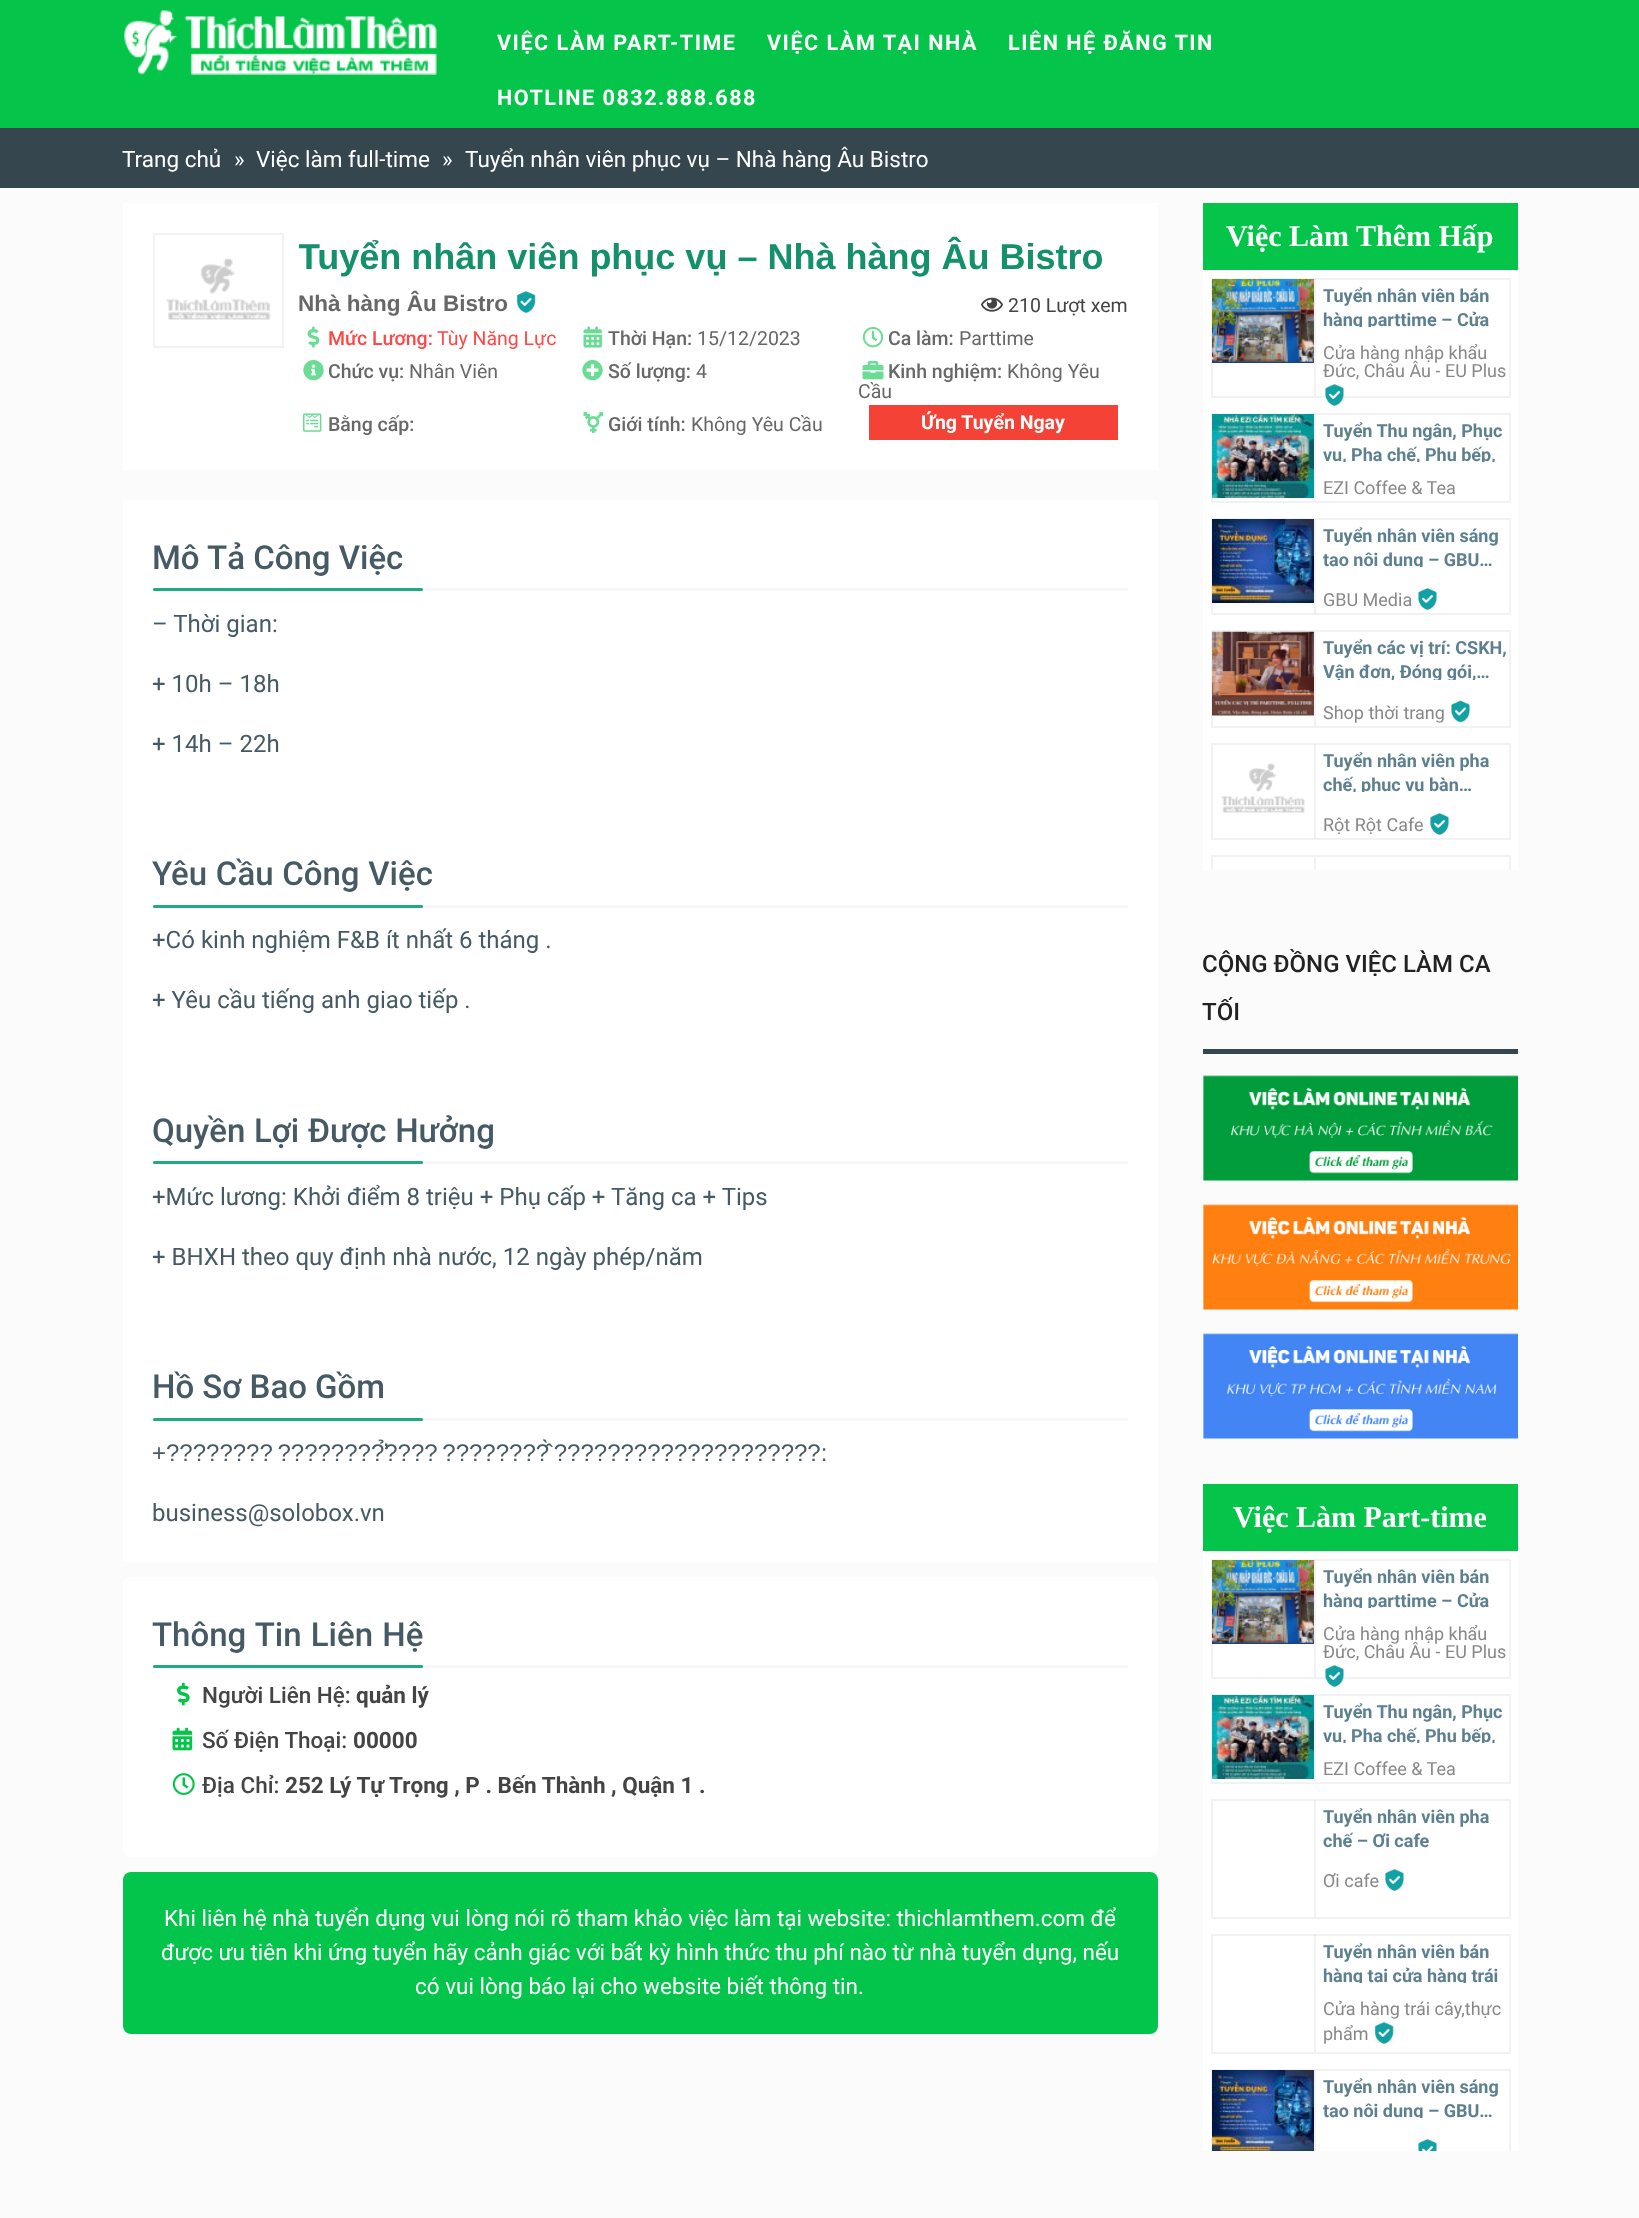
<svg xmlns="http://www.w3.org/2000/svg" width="1639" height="2218">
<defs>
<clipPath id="clip1"><rect x="299" y="225" width="829" height="63"/></clipPath>
<clipPath id="clip2"><rect x="1323" y="279" width="186" height="48"/></clipPath>
<clipPath id="clip3"><rect x="1323" y="414" width="186" height="48"/></clipPath>
<clipPath id="clip4"><rect x="1323" y="519" width="186" height="48"/></clipPath>
<clipPath id="clip5"><rect x="1323" y="632" width="186" height="48"/></clipPath>
<clipPath id="clip6"><rect x="1323" y="744" width="186" height="48"/></clipPath>
<clipPath id="clip7"><rect x="1203" y="270" width="315" height="600"/></clipPath>
<clipPath id="clip8"><rect x="1323" y="1560" width="186" height="48"/></clipPath>
<clipPath id="clip9"><rect x="1323" y="1695" width="186" height="48"/></clipPath>
<clipPath id="clip10"><rect x="1323" y="1935" width="186" height="48"/></clipPath>
<clipPath id="clip11"><rect x="1203" y="1551" width="315" height="600"/></clipPath>
<clipPath id="clip12"><rect x="1323" y="2070" width="186" height="48"/></clipPath>
</defs>
<rect width="100%" height="100%" fill="#fbfbfb"/>
<rect width="1639" height="128" fill="#04c44a"/>
<image x="124" y="10" width="313" height="65" href="media/1.png"/>
<text x="497" y="50" style="font-family:Roboto;font-size:21.6px;font-weight:bold;letter-spacing:1.5px;fill:#fff">VIỆC LÀM PART-TIME</text>
<text x="767" y="50" style="font-family:Roboto;font-size:21.6px;font-weight:bold;letter-spacing:1.5px;fill:#fff">VIỆC LÀM TẠI NHÀ</text>
<text x="1008" y="50" style="font-family:Roboto;font-size:21.6px;font-weight:bold;letter-spacing:1.5px;fill:#fff">LIÊN HỆ ĐĂNG TIN</text>
<text x="497" y="105" style="font-family:Roboto;font-size:21.6px;font-weight:bold;letter-spacing:1.5px;fill:#fff">HOTLINE 0832.888.688</text>
<rect y="128" width="1639" height="60" fill="#35464e"/>
<text x="122" y="167" style="font-family:Roboto;font-size:22.5px;fill:#fff">Trang chủ</text>
<text x="234" y="167" style="font-family:Roboto;font-size:22.5px;fill:#fff">»</text>
<text x="256" y="167" style="font-family:Roboto;font-size:22.5px;fill:#fff">Việc làm full-time</text>
<text x="442" y="167" style="font-family:Roboto;font-size:22.5px;fill:#fff">»</text>
<text x="465" y="167" style="font-family:Roboto;font-size:22.5px;fill:#fff">Tuyển nhân viên phục vụ – Nhà hàng Âu Bistro</text>
<rect x="123" y="203" width="1035" height="267" fill="#fff"/>
<rect x="154" y="234" width="129" height="113" fill="none" stroke="#f0f2f3" stroke-width="2"/>
<image x="166" y="258" width="105" height="62" href="media/2.png"/>
<g clip-path="url(#clip1)">
<text x="298" y="269" style="font-family:Liberation Sans;font-size:36px;font-weight:bold;fill:#14906d">Tuyển nhân viên phục vụ – Nhà hàng Âu Bistro</text>
</g>
<text x="298" y="311" style="font-family:Liberation Sans;font-size:22.5px;font-weight:bold;fill:#676767">Nhà hàng Âu Bistro</text>
<image x="516" y="291" width="20" height="22" href="media/3.png"/>
<image x="981" y="297" width="22" height="15" href="media/4.png"/>
<text x="1008" y="312" style="font-family:Roboto;font-size:19.5px;fill:#444">210 Lượt xem</text>
<image x="307" y="326" width="13" height="22" href="media/5.png"/>
<text x="328" y="345" style="font-family:Roboto;font-size:19.5px;font-weight:500;fill:#ff4747">Mức Lương:</text>
<text x="437" y="345" style="font-family:Roboto;font-size:19.5px;fill:#ff4747">Tùy Năng Lực</text>
<image x="583" y="326" width="19" height="22" href="media/6.png"/>
<text x="608" y="345" style="font-family:Roboto;font-size:19.5px;font-weight:500;fill:#676767">Thời Hạn:</text>
<text x="697" y="345" style="font-family:Roboto;font-size:19.5px;fill:#676767">15/12/2023</text>
<image x="862" y="327" width="22" height="21" href="media/7.png"/>
<text x="888" y="345" style="font-family:Roboto;font-size:19.5px;font-weight:500;fill:#676767">Ca làm:</text>
<text x="959" y="345" style="font-family:Roboto;font-size:19.5px;fill:#676767">Parttime</text>
<image x="303" y="360" width="21" height="21" href="media/8.png"/>
<text x="328" y="378" style="font-family:Roboto;font-size:19.5px;font-weight:500;fill:#676767">Chức vụ:</text>
<text x="409" y="378" style="font-family:Roboto;font-size:19.5px;fill:#676767">Nhân Viên</text>
<image x="582" y="360" width="21" height="21" href="media/9.png"/>
<text x="608" y="378" style="font-family:Roboto;font-size:19.5px;font-weight:500;fill:#676767">Số lượng:</text>
<text x="696" y="378" style="font-family:Roboto;font-size:19.5px;fill:#676767">4</text>
<image x="862" y="360" width="22" height="20" href="media/10.png"/>
<text x="888" y="378" style="font-family:Roboto;font-size:19.5px;font-weight:500;fill:#676767">Kinh nghiệm:</text>
<text x="1007" y="378" style="font-family:Roboto;font-size:19.5px;fill:#676767">Không Yêu</text>
<text x="858" y="398" style="font-family:Roboto;font-size:19.5px;fill:#676767">Cầu</text>
<image x="303" y="413" width="19" height="19" href="media/11.png"/>
<text x="328" y="431" style="font-family:Roboto;font-size:19.5px;font-weight:500;fill:#676767">Bằng cấp:</text>
<image x="583" y="412" width="21" height="22" href="media/12.png"/>
<text x="608" y="431" style="font-family:Roboto;font-size:19.5px;font-weight:500;fill:#676767">Giới tính:</text>
<text x="691" y="431" style="font-family:Roboto;font-size:19.5px;fill:#676767">Không Yêu Cầu</text>
<rect x="869" y="405" width="249" height="35" fill="#f44336"/>
<text x="921" y="429" style="font-family:Roboto;font-size:19.5px;font-weight:bold;fill:#fff">Ứng Tuyển Ngay</text>
<rect x="123" y="500" width="1035" height="1062" fill="#fff"/>
<rect x="153" y="588" width="975" height="3" fill="#f7f7f7"/>
<text x="152" y="569" style="font-family:Roboto;font-size:33px;font-weight:500;fill:#455a64">Mô Tả Công Việc</text>
<rect x="153" y="588" width="270" height="3" rx="1.5" fill="#1dab83"/>
<text x="152" y="632" style="font-family:Roboto;font-size:24px;fill:#455a64">– Thời gian:</text>
<text x="152" y="692" style="font-family:Roboto;font-size:24px;fill:#455a64">+ 10h – 18h</text>
<text x="152" y="752" style="font-family:Roboto;font-size:24px;fill:#455a64">+ 14h – 22h</text>
<rect x="153" y="905" width="975" height="3" fill="#f7f7f7"/>
<text x="152" y="885" word-spacing="0.5" style="font-family:Roboto;font-size:33px;font-weight:500;fill:#455a64">Yêu Cầu Công Việc</text>
<rect x="153" y="905" width="270" height="3" rx="1.5" fill="#1dab83"/>
<text x="152" y="948" style="font-family:Roboto;font-size:24px;fill:#455a64">+Có kinh nghiệm F&amp;B ít nhất 6 tháng .</text>
<text x="152" y="1008" style="font-family:Roboto;font-size:24px;fill:#455a64">+ Yêu cầu tiếng anh giao tiếp .</text>
<rect x="153" y="1161" width="975" height="3" fill="#f7f7f7"/>
<text x="152" y="1142" word-spacing="0.5" style="font-family:Roboto;font-size:33px;font-weight:500;fill:#455a64">Quyền Lợi Được Hưởng</text>
<rect x="153" y="1161" width="270" height="3" rx="1.5" fill="#1dab83"/>
<text x="152" y="1205" style="font-family:Roboto;font-size:24px;fill:#455a64">+Mức lương: Khởi điểm 8 triệu + Phụ cấp + Tăng ca + Tips</text>
<text x="152" y="1265" style="font-family:Roboto;font-size:24px;fill:#455a64">+ BHXH theo quy định nhà nước, 12 ngày phép/năm</text>
<rect x="153" y="1418" width="975" height="3" fill="#f7f7f7"/>
<text x="152" y="1398" style="font-family:Roboto;font-size:33px;font-weight:500;fill:#455a64">Hồ Sơ Bao Gồm</text>
<rect x="153" y="1418" width="270" height="3" rx="1.5" fill="#1dab83"/>
<text x="152" y="1461" word-spacing="-2" style="font-family:Liberation Sans;font-size:24px;fill:#455a64">+???????? ????????̛̉???? ????????̂̀ ????????????????????:</text>
<text x="152" y="1521" style="font-family:Roboto;font-size:24px;fill:#455a64">business@solobox.vn</text>
<rect x="123" y="1577" width="1035" height="280" rx="8" fill="#fff"/>
<rect x="153" y="1665" width="975" height="3" fill="#f7f7f7"/>
<text x="152" y="1646" word-spacing="1" style="font-family:Roboto;font-size:33px;font-weight:500;fill:#455a64">Thông Tin Liên Hệ</text>
<rect x="153" y="1665" width="270" height="3" rx="1.5" fill="#1dab83"/>
<image x="177" y="1682" width="13" height="24" href="media/13.png"/>
<text x="202" y="1703" style="font-family:Roboto;font-size:22.5px;font-weight:500;fill:#444">Người Liên Hệ:</text>
<text x="356" y="1703" style="font-family:Roboto;font-size:22.5px;font-weight:bold;fill:#444">quản lý</text>
<image x="172" y="1727" width="21" height="24" href="media/14.png"/>
<text x="202" y="1748" style="font-family:Roboto;font-size:22.5px;font-weight:500;fill:#444">Số Điện Thoại:</text>
<text x="353" y="1748" style="font-family:Roboto;font-size:22.5px;font-weight:bold;fill:#444">00000</text>
<image x="172" y="1773" width="23" height="22" href="media/15.png"/>
<text x="202" y="1793" style="font-family:Roboto;font-size:22.5px;font-weight:500;fill:#444">Địa Chỉ:</text>
<text x="285" y="1793" style="font-family:Roboto;font-size:22.5px;font-weight:bold;fill:#444">252 Lý Tự Trọng , P . Bến Thành , Quận 1 .</text>
<rect x="123" y="1872" width="1035" height="162" rx="8" fill="#03c54b"/>
<text x="164" y="1926" style="font-family:Roboto;font-size:22.5px;fill:#fff">Khi liên hệ nhà tuyển dụng vui lòng nói rõ tham khảo việc làm tại website: thichlamthem.com để</text>
<text x="161" y="1960" style="font-family:Roboto;font-size:22.5px;fill:#fff">được ưu tiên khi ứng tuyển hãy cảnh giác với bất kỳ hình thức thu phí nào từ nhà tuyển dụng, nếu</text>
<text x="415" y="1994" style="font-family:Roboto;font-size:22.5px;fill:#fff">có vui lòng báo lại cho website biết thông tin.</text>
<rect x="1203" y="203" width="315" height="67" fill="#04c44a"/>
<text x="1226" y="246" style="font-family:Liberation Serif;font-size:30px;font-weight:bold;fill:#fff">Việc Làm Thêm Hấp</text>
<rect x="1203" y="270" width="315" height="600" fill="#fff"/>
<rect x="1212" y="279" width="298" height="118" fill="none" stroke="#f0f2f3" stroke-width="2"/>
<rect x="1314" y="279" width="2" height="117" fill="#455a6414"/>
<image x="1212" y="279" width="102" height="84" href="media/16.png"/>
<text x="1323" y="302" style="font-family:Roboto;font-size:18px;font-weight:bold;fill:#5d8090">Tuyển nhân viên bán</text>
<g clip-path="url(#clip2)">
<text x="1323" y="326" style="font-family:Roboto;font-size:18px;font-weight:bold;fill:#5d8090">hàng parttime – Cửa</text>
</g>
<text x="1323" y="359" style="font-family:Roboto;font-size:18px;fill:#888">Cửa hàng nhập khẩu</text>
<text x="1323" y="377" style="font-family:Roboto;font-size:18px;fill:#888">Đức, Châu Âu - EU Plus</text>
<image x="1325" y="384" width="19" height="22" href="media/17.png"/>
<rect x="1212" y="414" width="298" height="88" fill="none" stroke="#f0f2f3" stroke-width="2"/>
<rect x="1314" y="414" width="2" height="87" fill="#455a6414"/>
<image x="1212" y="414" width="102" height="84" href="media/18.png"/>
<text x="1323" y="437" style="font-family:Roboto;font-size:18px;font-weight:bold;fill:#5d8090">Tuyển Thu ngân, Phục</text>
<g clip-path="url(#clip3)">
<text x="1323" y="461" style="font-family:Roboto;font-size:18px;font-weight:bold;fill:#5d8090">vụ, Pha chế, Phụ bếp,</text>
</g>
<text x="1323" y="494" style="font-family:Roboto;font-size:18px;fill:#888">EZI Coffee &amp; Tea</text>
<rect x="1212" y="519" width="298" height="95" fill="none" stroke="#f0f2f3" stroke-width="2"/>
<rect x="1314" y="519" width="2" height="95" fill="#455a6414"/>
<image x="1212" y="519" width="102" height="84" href="media/19.png"/>
<text x="1323" y="542" style="font-family:Roboto;font-size:18px;font-weight:bold;fill:#5d8090">Tuyển nhân viên sáng</text>
<g clip-path="url(#clip4)">
<text x="1323" y="566" style="font-family:Roboto;font-size:18px;font-weight:bold;fill:#5d8090">tạo nội dung – GBU…</text>
</g>
<text x="1323" y="606" style="font-family:Roboto;font-size:18px;fill:#888">GBU Media</text>
<image x="1418" y="588" width="19" height="22" href="media/20.png"/>
<rect x="1212" y="631" width="298" height="96" fill="none" stroke="#f0f2f3" stroke-width="2"/>
<rect x="1314" y="632" width="2" height="94" fill="#f0f2f3"/>
<image x="1212" y="631" width="102" height="85" href="media/21.png"/>
<text x="1323" y="654" style="font-family:Roboto;font-size:18px;font-weight:bold;fill:#5d8090">Tuyển các vị trí: CSKH,</text>
<g clip-path="url(#clip5)">
<text x="1323" y="678" style="font-family:Roboto;font-size:18px;font-weight:bold;fill:#5d8090">Vận đơn, Đóng gói,…</text>
</g>
<text x="1323" y="719" style="font-family:Roboto;font-size:18px;fill:#888">Shop thời trang</text>
<image x="1451" y="700" width="19" height="23" href="media/22.png"/>
<rect x="1212" y="744" width="298" height="95" fill="none" stroke="#f0f2f3" stroke-width="2"/>
<rect x="1314" y="744" width="2" height="95" fill="#455a6414"/>
<image x="1221" y="763" width="84" height="50" href="media/23.png"/>
<text x="1323" y="767" style="font-family:Roboto;font-size:18px;font-weight:bold;fill:#5d8090">Tuyển nhân viên pha</text>
<g clip-path="url(#clip6)">
<text x="1323" y="791" style="font-family:Roboto;font-size:18px;font-weight:bold;fill:#5d8090">chế, phục vụ bàn…</text>
</g>
<text x="1323" y="831" style="font-family:Roboto;font-size:18px;fill:#888">Rột Rột Cafe</text>
<image x="1430" y="813" width="19" height="22" href="media/20.png"/>
<text x="1202" y="972" style="font-family:Roboto;font-size:24px;font-weight:500;fill:#222">CỘNG ĐỒNG VIỆC LÀM CA</text>
<g clip-path="url(#clip7)">
<rect x="1212" y="856" width="298" height="118" fill="none" stroke="#f0f2f3" stroke-width="2"/>
</g>
<rect x="1314" y="857" width="2" height="13" fill="#f0f2f3"/>
<rect x="1203" y="1049" width="315" height="5" fill="#35464e"/>
<text x="1202" y="1020" style="font-family:Roboto;font-size:24px;font-weight:500;fill:#222">TỐI</text>
<image x="1203" y="1075" width="315" height="106" href="media/24.png"/>
<image x="1203" y="1204" width="315" height="106" href="media/25.png"/>
<image x="1203" y="1333" width="315" height="106" href="media/26.png"/>
<rect x="1203" y="1484" width="315" height="67" fill="#04c44a"/>
<text x="1233" y="1527" style="font-family:Liberation Serif;font-size:30px;font-weight:bold;fill:#fff">Việc Làm Part-time</text>
<rect x="1203" y="1551" width="315" height="600" fill="#fff"/>
<rect x="1212" y="1560" width="298" height="118" fill="none" stroke="#f0f2f3" stroke-width="2"/>
<rect x="1314" y="1560" width="2" height="117" fill="#455a6414"/>
<image x="1212" y="1560" width="102" height="84" href="media/27.png"/>
<text x="1323" y="1583" style="font-family:Roboto;font-size:18px;font-weight:bold;fill:#5d8090">Tuyển nhân viên bán</text>
<g clip-path="url(#clip8)">
<text x="1323" y="1607" style="font-family:Roboto;font-size:18px;font-weight:bold;fill:#5d8090">hàng parttime – Cửa</text>
</g>
<text x="1323" y="1640" style="font-family:Roboto;font-size:18px;fill:#888">Cửa hàng nhập khẩu</text>
<text x="1323" y="1658" style="font-family:Roboto;font-size:18px;fill:#888">Đức, Châu Âu - EU Plus</text>
<image x="1325" y="1665" width="19" height="22" href="media/17.png"/>
<rect x="1212" y="1695" width="298" height="88" fill="none" stroke="#f0f2f3" stroke-width="2"/>
<rect x="1314" y="1695" width="2" height="87" fill="#455a6414"/>
<image x="1212" y="1695" width="102" height="84" href="media/18.png"/>
<text x="1323" y="1718" style="font-family:Roboto;font-size:18px;font-weight:bold;fill:#5d8090">Tuyển Thu ngân, Phục</text>
<g clip-path="url(#clip9)">
<text x="1323" y="1742" style="font-family:Roboto;font-size:18px;font-weight:bold;fill:#5d8090">vụ, Pha chế, Phụ bếp,</text>
</g>
<text x="1323" y="1775" style="font-family:Roboto;font-size:18px;fill:#888">EZI Coffee &amp; Tea</text>
<rect x="1212" y="1800" width="298" height="118" fill="none" stroke="#f0f2f3" stroke-width="2"/>
<rect x="1314" y="1800" width="2" height="117" fill="#455a6414"/>
<text x="1323" y="1823" style="font-family:Roboto;font-size:18px;font-weight:bold;fill:#5d8090">Tuyển nhân viên pha</text>
<text x="1323" y="1847" style="font-family:Roboto;font-size:18px;font-weight:bold;fill:#5d8090">chế – Ơi cafe</text>
<text x="1323" y="1887" style="font-family:Roboto;font-size:18px;fill:#888">Ơi cafe</text>
<image x="1385" y="1869" width="19" height="22" href="media/20.png"/>
<rect x="1212" y="1935" width="298" height="118" fill="none" stroke="#f0f2f3" stroke-width="2"/>
<rect x="1314" y="1935" width="2" height="117" fill="#455a6414"/>
<text x="1323" y="1958" style="font-family:Roboto;font-size:18px;font-weight:bold;fill:#5d8090">Tuyển nhân viên bán</text>
<g clip-path="url(#clip10)">
<text x="1323" y="1982" style="font-family:Roboto;font-size:18px;font-weight:bold;fill:#5d8090">hàng tại cửa hàng trái</text>
</g>
<text x="1323" y="2015" style="font-family:Roboto;font-size:18px;fill:#888">Cửa hàng trái cây,thực</text>
<text x="1323" y="2040" style="font-family:Roboto;font-size:18px;fill:#888">phẩm</text>
<image x="1374" y="2022" width="20" height="22" href="media/28.png"/>
<g clip-path="url(#clip11)">
<rect x="1212" y="2070" width="298" height="95" fill="none" stroke="#f0f2f3" stroke-width="2"/>
</g>
<rect x="1314" y="2070" width="2" height="81" fill="#455a6414"/>
<image x="1212" y="2070" width="102" height="81" href="media/29.png"/>
<text x="1323" y="2093" style="font-family:Roboto;font-size:18px;font-weight:bold;fill:#5d8090">Tuyển nhân viên sáng</text>
<g clip-path="url(#clip12)">
<text x="1323" y="2117" style="font-family:Roboto;font-size:18px;font-weight:bold;fill:#5d8090">tạo nội dung – GBU…</text>
</g>
<image x="1418" y="2139" width="19" height="12" href="media/30.png"/>
</svg>
